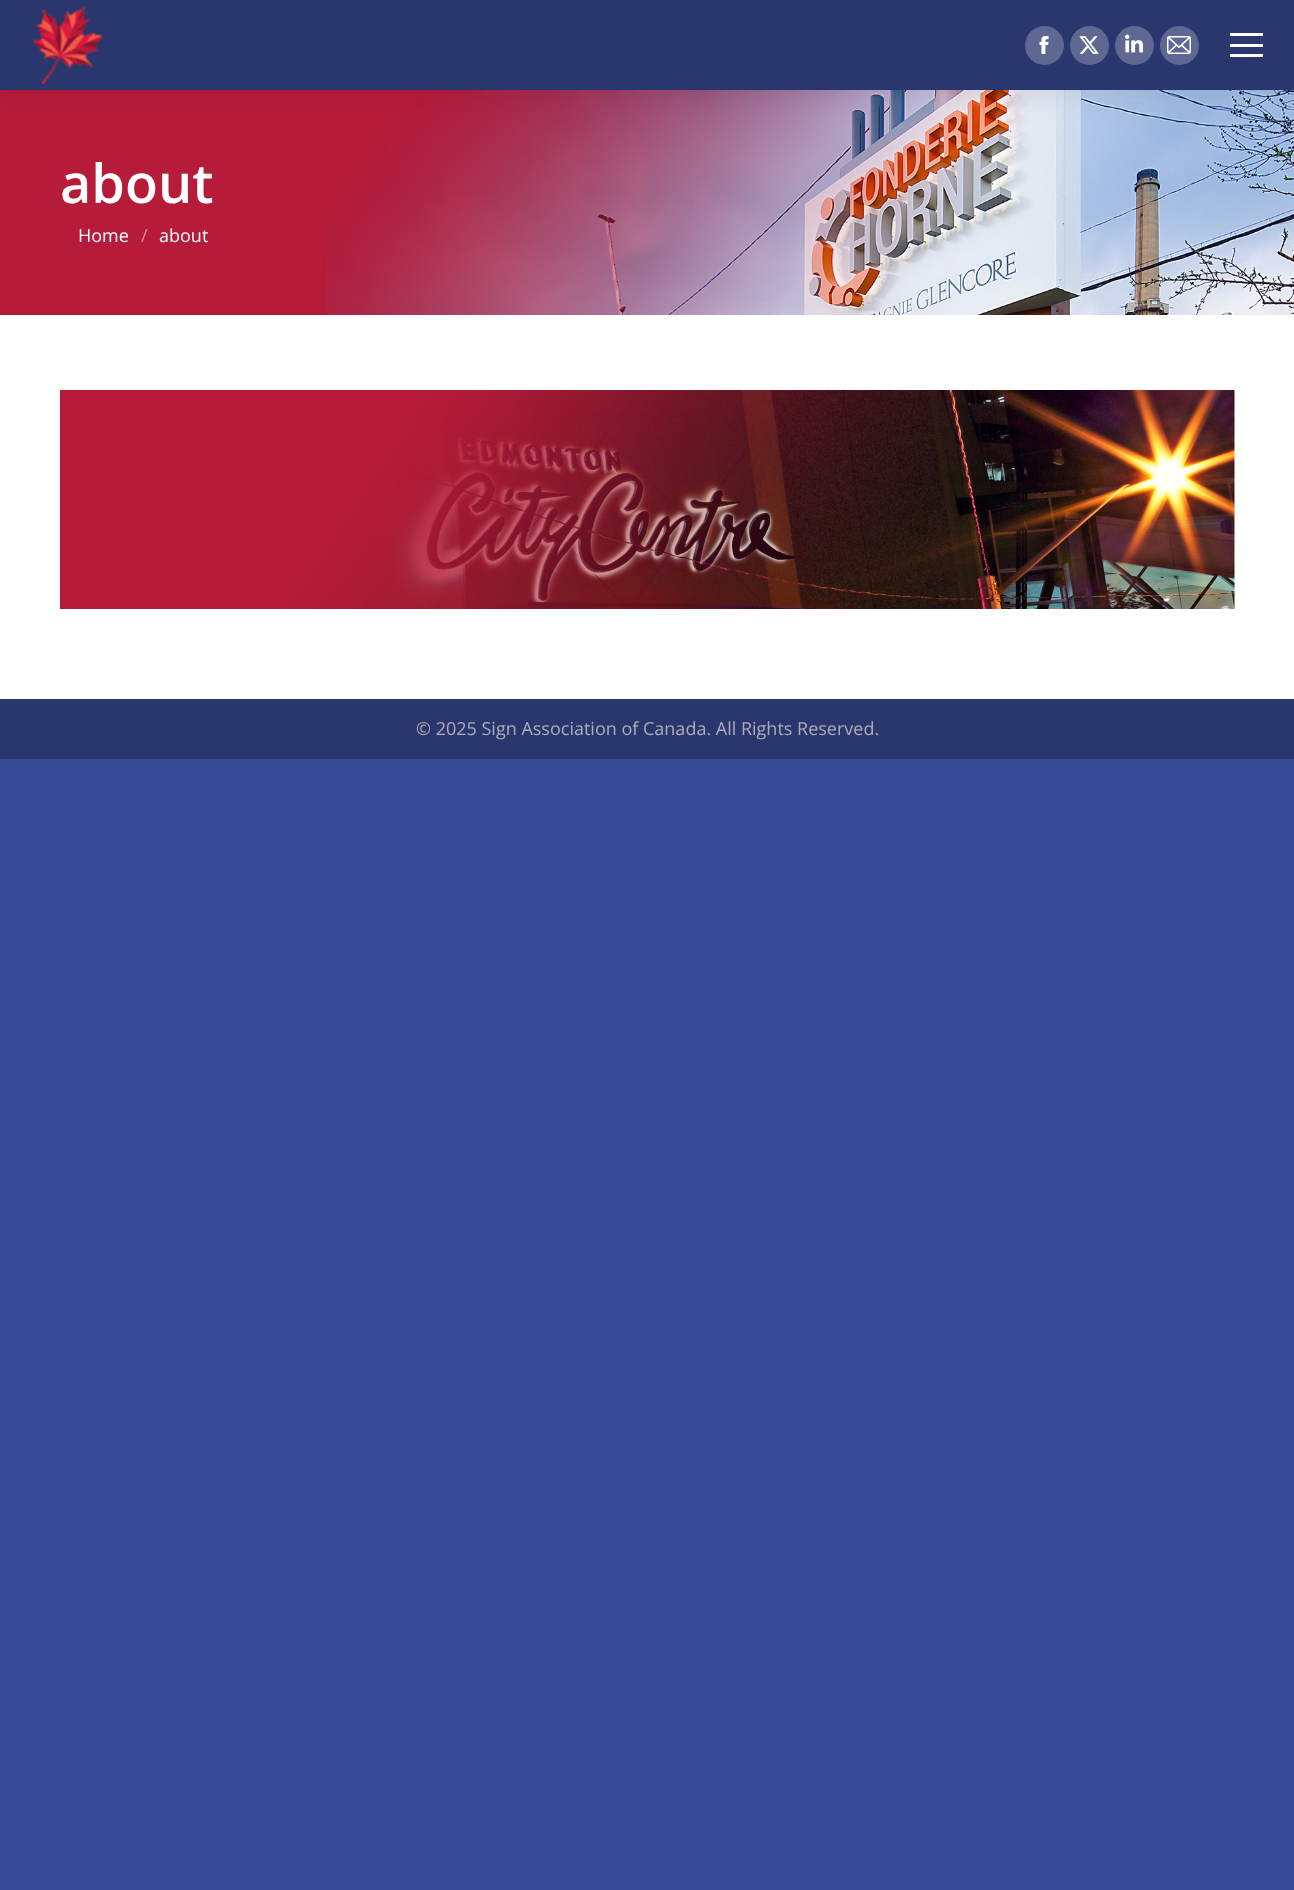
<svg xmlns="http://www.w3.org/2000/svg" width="1294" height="1890">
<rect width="100%" height="100%" fill="#394a96"/>
<rect y="315" width="1294" height="384" fill="#fff"/>
<image x="0" y="90" width="1294" height="225" href="media/6.png"/>
<rect x="-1" y="-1" width="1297" height="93" fill="#00000012" filter="blur(11px)"/>
<rect width="1294" height="90" fill="#2a366e"/>
<image x="32" y="5" width="72" height="80" href="media/1.png"/>
<circle cx="1044.5" cy="45.5" r="19.5" fill="#5f6892"/>
<image x="1039" y="36" width="10" height="18" href="media/2.png"/>
<circle cx="1089.5" cy="45.5" r="19.5" fill="#5f6892"/>
<image x="1079" y="36" width="20" height="18" href="media/3.png"/>
<circle cx="1134.5" cy="45.5" r="19.5" fill="#5f6892"/>
<image x="1125" y="34" width="18" height="19" href="media/4.png"/>
<circle cx="1179.5" cy="45.5" r="19.5" fill="#5f6892"/>
<image x="1167" y="36" width="24" height="18" href="media/5.png"/>
<rect x="1230" y="33" width="33" height="3" fill="#fff"/>
<rect x="1230" y="44" width="33" height="3" fill="#fff"/>
<rect x="1230" y="54" width="33" height="3" fill="#fff"/>
<text x="60" y="203" style="font-family:Open Sans;font-size:54px;font-weight:600;fill:#fff">about</text>
<text x="78" y="242" style="font-family:Open Sans;font-size:18px;fill:#fff">Home</text>
<text x="141" y="242" style="font-family:Open Sans;font-size:18px;fill:#db8d9d">/</text>
<text x="159" y="242" style="font-family:Open Sans;font-size:18px;fill:#fff">about</text>
<image x="60" y="390" width="1175" height="219" href="media/7.png"/>
<rect y="699" width="1294" height="60" fill="#2a366e"/>
<text x="416" y="735" style="font-family:Open Sans;font-size:18px;fill:#adadb8">© 2025 Sign Association of Canada. All Rights Reserved.</text>
</svg>
